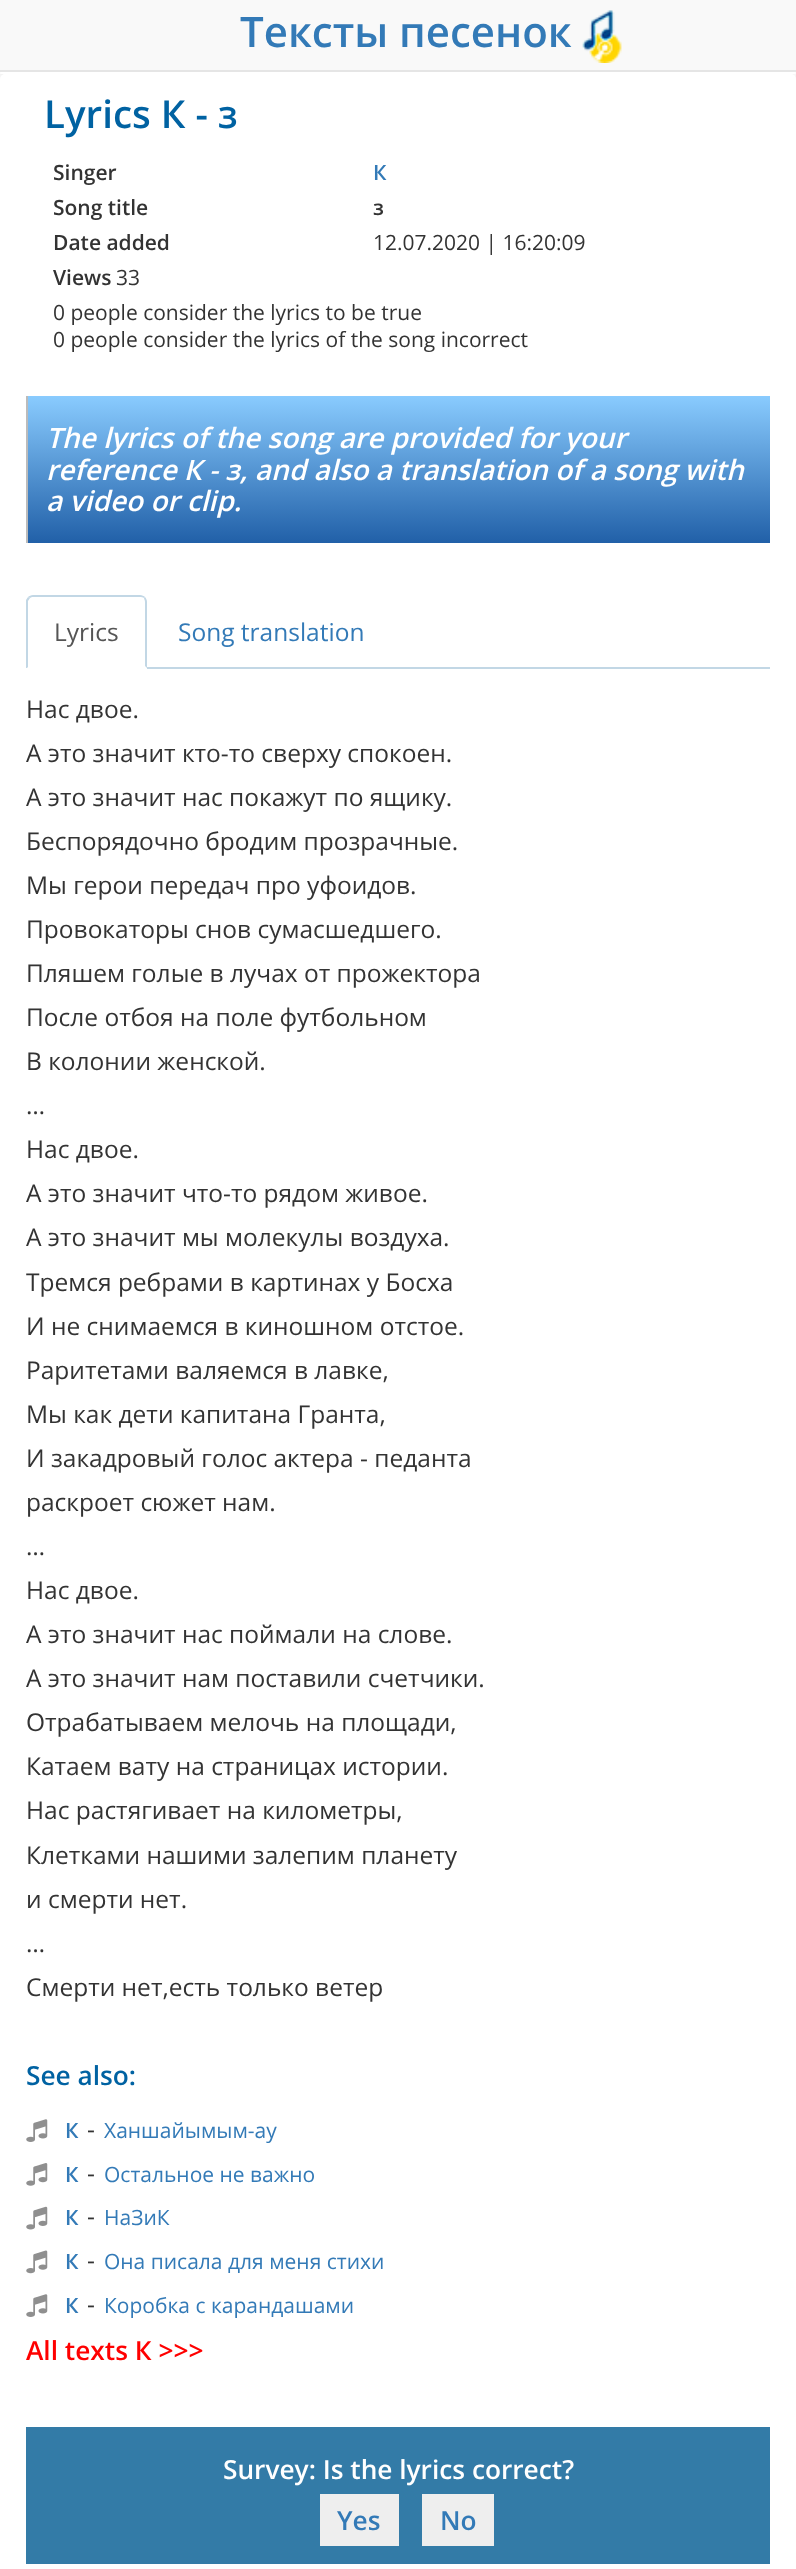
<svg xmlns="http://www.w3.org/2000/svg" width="796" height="2569">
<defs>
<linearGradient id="g1" gradientUnits="userSpaceOnUse" x1="399" y1="395" x2="399" y2="543"><stop offset="0" stop-color="#8accff"/><stop offset="1" stop-color="#2160a8"/></linearGradient>
</defs>
<rect width="100%" height="100%" fill="#fff"/>
<image x="0" y="72" width="796" height="7" href="media/1.png"/>
<rect width="796" height="70" fill="#f9f9f9"/>
<rect y="70" width="796" height="2" fill="#e5e5e5"/>
<text x="240" y="47" style="font-family:Open Sans;font-size:42px;font-weight:600;fill:#337ab7">Тексты песенок</text>
<image x="582" y="10" width="40" height="53" href="media/2.png"/>
<rect y="72" width="796" height="2" rx="1" fill="#fff"/>
<rect y="74" width="796" height="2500" rx="5" fill="#fff"/>
<text x="44" y="128" style="font-family:Open Sans;font-size:38.5px;font-weight:600;fill:#0062a2">Lyrics К - з</text>
<text x="53" y="180" style="font-family:Open Sans;font-size:21px;font-weight:600;fill:#333">Singer</text>
<text x="373" y="180" style="font-family:Open Sans;font-size:21px;font-weight:600;fill:#337ab7">К</text>
<text x="53" y="215" style="font-family:Open Sans;font-size:21px;font-weight:600;fill:#333">Song title</text>
<text x="373" y="215" style="font-family:Open Sans;font-size:21px;font-weight:600;fill:#333">з</text>
<text x="53" y="250" style="font-family:Open Sans;font-size:21px;font-weight:600;fill:#333">Date added</text>
<text x="373" y="250" style="font-family:Open Sans;font-size:21px;fill:#333">12.07.2020 | 16:20:09</text>
<text x="53" y="285" style="font-family:Open Sans;font-size:21px;font-weight:600;fill:#333">Views</text>
<text x="116" y="285" style="font-family:Open Sans;font-size:21px;fill:#333">33</text>
<text x="53" y="320" style="font-family:Open Sans;font-size:21px;fill:#333">0 people consider the lyrics to be true</text>
<text x="53" y="347" style="font-family:Open Sans;font-size:21px;fill:#333">0 people consider the lyrics of the song incorrect</text>
<rect x="28" y="396" width="742" height="147" fill="url(#g1)"/>
<rect x="26" y="396" width="2" height="147" fill="#bbb"/>
<text x="46" y="448" style="font-family:Open Sans;font-size:28px;font-weight:600;font-style:italic;fill:#fff">The lyrics of the song are provided for your</text>
<text x="46" y="480" style="font-family:Open Sans;font-size:28px;font-weight:600;font-style:italic;fill:#fff">reference К - з, and also a translation of a song with</text>
<text x="46" y="511" style="font-family:Open Sans;font-size:28px;font-weight:600;font-style:italic;fill:#fff">a video or clip.</text>
<rect x="147" y="667" width="623" height="2" fill="#c2d7e5"/>
<path d="M33 595c-2 0-4 1-5 2l2 1l2-1h108c1 0 3 0 4 1l1-1c-1-1-3-2-5-2z" fill="#c2d7e5"/>
<path d="M147 668v-66c0-2-1-4-2-5l-1 1c0 1 1 2 1 4v64z" fill="#c2d7e5"/>
<path d="M26 600l2-3l2 1l-2 3v66l-1 1h-1z" fill="#c2d7e5"/>
<text x="54" y="641" style="font-family:Open Sans;font-size:24.5px;fill:#555">Lyrics</text>
<text x="178" y="641" style="font-family:Open Sans;font-size:24.5px;fill:#337ab7">Song translation</text>
<text x="26" y="718" style="font-family:Open Sans;font-size:24.5px;fill:#333">Нас двое.</text>
<text x="26" y="762" style="font-family:Open Sans;font-size:24.5px;fill:#333">А это значит кто-то сверху спокоен.</text>
<text x="26" y="806" style="font-family:Open Sans;font-size:24.5px;fill:#333">А это значит нас покажут по ящику.</text>
<text x="26" y="850" style="font-family:Open Sans;font-size:24.5px;fill:#333">Беспорядочно бродим прозрачные.</text>
<text x="26" y="894" style="font-family:Open Sans;font-size:24.5px;fill:#333">Мы герои передач про уфоидов.</text>
<text x="26" y="938" style="font-family:Open Sans;font-size:24.5px;fill:#333">Провокаторы снов сумасшедшего.</text>
<text x="26" y="982" style="font-family:Open Sans;font-size:24.5px;fill:#333">Пляшем голые в лучах от прожектора</text>
<text x="26" y="1026" style="font-family:Open Sans;font-size:24.5px;fill:#333">После отбоя на поле футбольном</text>
<text x="26" y="1070" style="font-family:Open Sans;font-size:24.5px;fill:#333">В колонии женской.</text>
<text x="26" y="1114" style="font-family:Open Sans;font-size:24.5px;fill:#333">…</text>
<text x="26" y="1158" style="font-family:Open Sans;font-size:24.5px;fill:#333">Нас двое.</text>
<text x="26" y="1202" style="font-family:Open Sans;font-size:24.5px;fill:#333">А это значит что-то рядом живое.</text>
<text x="26" y="1246" style="font-family:Open Sans;font-size:24.5px;fill:#333">А это значит мы молекулы воздуха.</text>
<text x="26" y="1291" style="font-family:Open Sans;font-size:24.5px;fill:#333">Тремся ребрами в картинах у Босха</text>
<text x="26" y="1335" style="font-family:Open Sans;font-size:24.5px;fill:#333">И не снимаемся в киношном отстое.</text>
<text x="26" y="1379" style="font-family:Open Sans;font-size:24.5px;fill:#333">Раритетами валяемся в лавке,</text>
<text x="26" y="1423" style="font-family:Open Sans;font-size:24.5px;fill:#333">Мы как дети капитана Гранта,</text>
<text x="26" y="1467" style="font-family:Open Sans;font-size:24.5px;fill:#333">И закадровый голос актера - педанта</text>
<text x="26" y="1511" style="font-family:Open Sans;font-size:24.5px;fill:#333">раскроет сюжет нам.</text>
<text x="26" y="1555" style="font-family:Open Sans;font-size:24.5px;fill:#333">…</text>
<text x="26" y="1599" style="font-family:Open Sans;font-size:24.5px;fill:#333">Нас двое.</text>
<text x="26" y="1643" style="font-family:Open Sans;font-size:24.5px;fill:#333">А это значит нас поймали на слове.</text>
<text x="26" y="1687" style="font-family:Open Sans;font-size:24.5px;fill:#333">А это значит нам поставили счетчики.</text>
<text x="26" y="1731" style="font-family:Open Sans;font-size:24.5px;fill:#333">Отрабатываем мелочь на площади,</text>
<text x="26" y="1775" style="font-family:Open Sans;font-size:24.5px;fill:#333">Катаем вату на страницах истории.</text>
<text x="26" y="1819" style="font-family:Open Sans;font-size:24.5px;fill:#333">Нас растягивает на километры,</text>
<text x="26" y="1864" style="font-family:Open Sans;font-size:24.5px;fill:#333">Клетками нашими залепим планету</text>
<text x="26" y="1908" style="font-family:Open Sans;font-size:24.5px;fill:#333">и смерти нет.</text>
<text x="26" y="1952" style="font-family:Open Sans;font-size:24.5px;fill:#333">…</text>
<text x="26" y="1996" style="font-family:Open Sans;font-size:24.5px;fill:#333">Смерти нет,есть только ветер</text>
<text x="26" y="2085" style="font-family:Open Sans;font-size:26.25px;font-weight:600;fill:#0062a2">See also:</text>
<image x="26" y="2119" width="22" height="23" href="media/3.png"/>
<text x="65" y="2138" style="font-family:Open Sans;font-size:21px;font-weight:600;fill:#337ab7">К</text>
<text x="87" y="2138" style="font-family:Open Sans;font-size:24.5px;fill:#333">-</text>
<text x="104" y="2138" style="font-family:Open Sans;font-size:21px;fill:#337ab7">Ханшайымым-ау</text>
<image x="26" y="2163" width="22" height="23" href="media/4.png"/>
<text x="65" y="2182" style="font-family:Open Sans;font-size:21px;font-weight:600;fill:#337ab7">К</text>
<text x="87" y="2182" style="font-family:Open Sans;font-size:24.5px;fill:#333">-</text>
<text x="104" y="2182" style="font-family:Open Sans;font-size:21px;fill:#337ab7">Остальное не важно</text>
<image x="26" y="2206" width="22" height="24" href="media/5.png"/>
<text x="65" y="2225" style="font-family:Open Sans;font-size:21px;font-weight:600;fill:#337ab7">К</text>
<text x="87" y="2225" style="font-family:Open Sans;font-size:24.5px;fill:#333">-</text>
<text x="104" y="2225" style="font-family:Open Sans;font-size:21px;fill:#337ab7">НаЗиК</text>
<image x="26" y="2250" width="22" height="24" href="media/6.png"/>
<text x="65" y="2269" style="font-family:Open Sans;font-size:21px;font-weight:600;fill:#337ab7">К</text>
<text x="87" y="2269" style="font-family:Open Sans;font-size:24.5px;fill:#333">-</text>
<text x="104" y="2269" style="font-family:Open Sans;font-size:21px;fill:#337ab7">Она писала для меня стихи</text>
<image x="26" y="2294" width="22" height="23" href="media/3.png"/>
<text x="65" y="2313" style="font-family:Open Sans;font-size:21px;font-weight:600;fill:#337ab7">К</text>
<text x="87" y="2313" style="font-family:Open Sans;font-size:24.5px;fill:#333">-</text>
<text x="104" y="2313" style="font-family:Open Sans;font-size:21px;fill:#337ab7">Коробка с карандашами</text>
<text x="26" y="2360" style="font-family:Open Sans;font-size:26.25px;font-weight:600;fill:#f00">All texts К &gt;&gt;&gt;</text>
<rect x="26" y="2427" width="744" height="137" fill="#337ba7"/>
<text x="223" y="2479" style="font-family:Open Sans;font-size:26.25px;font-weight:600;fill:#fff">Survey: Is the lyrics correct?</text>
<rect x="320" y="2494" width="79" height="52" fill="#eee"/>
<text x="337" y="2530" style="font-family:Open Sans;font-size:26.25px;font-weight:600;fill:#337ab7">Yes</text>
<rect x="422" y="2494" width="72" height="52" fill="#eee"/>
<text x="440" y="2530" style="font-family:Open Sans;font-size:26.25px;font-weight:600;fill:#337ab7">No</text>
</svg>
